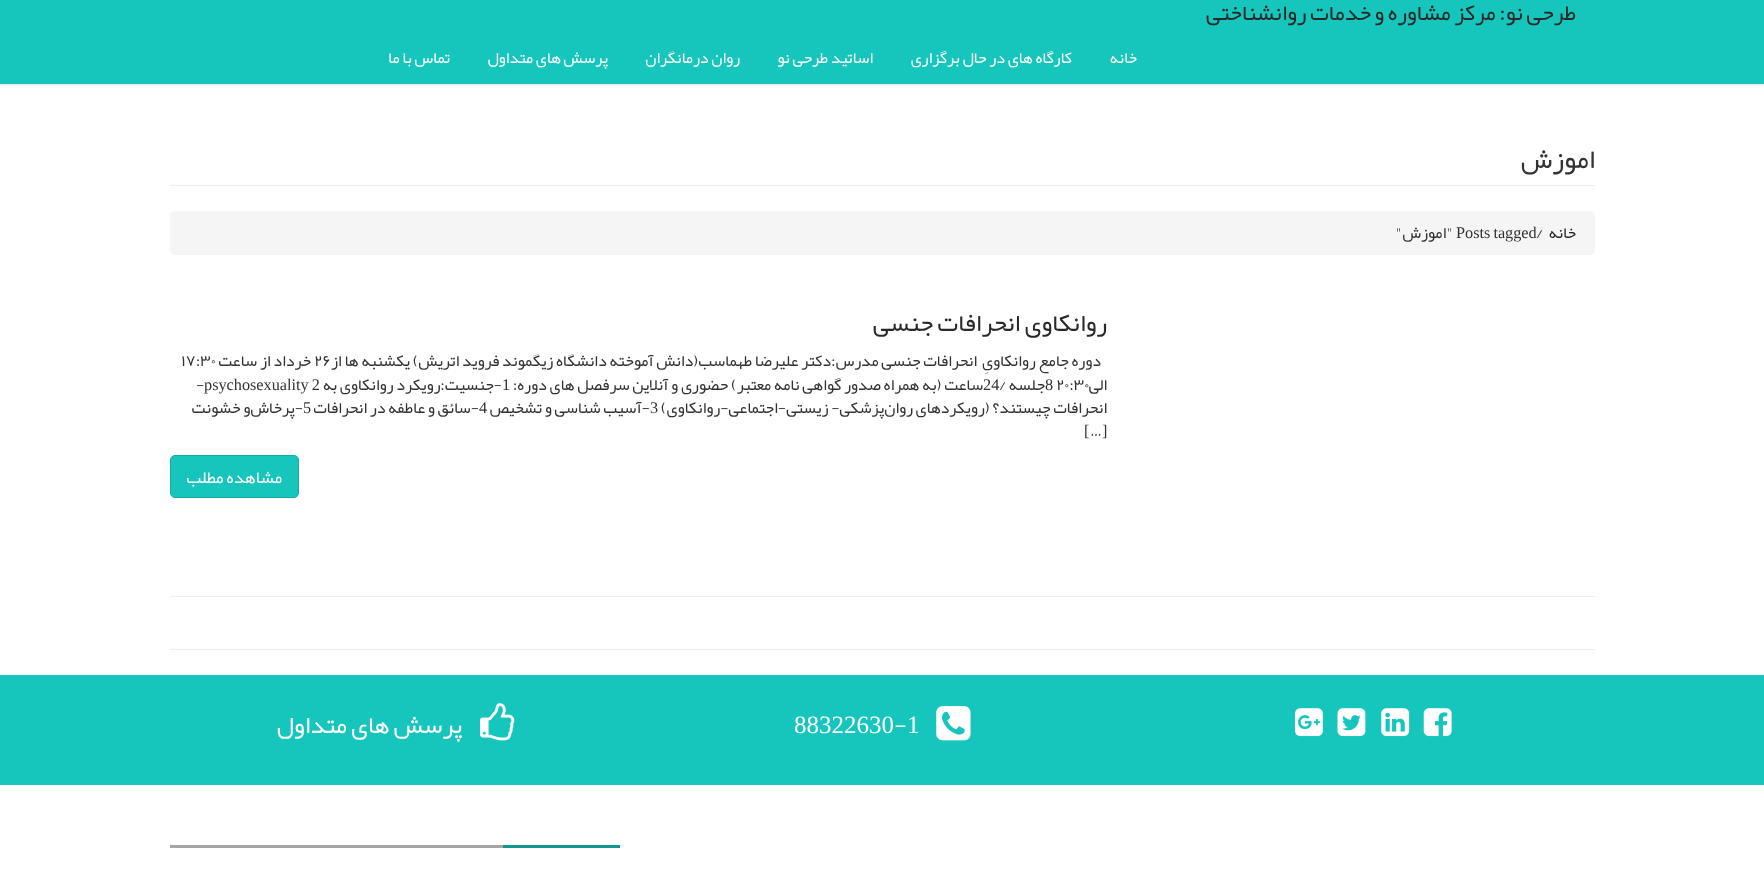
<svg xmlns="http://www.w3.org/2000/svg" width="1764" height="889">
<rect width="100%" height="100%" fill="#fff"/>
<rect y="1" width="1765" height="84" fill="#0000001f" filter="blur(1px)"/>
<rect width="1764" height="84" fill="#16c5bb"/>
<text x="1576" y="20" style="font-family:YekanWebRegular;font-size:22.5px;direction:rtl;fill:#292929">طرحی نو: مرکز مشاوره و</text>
<text x="1371" y="20" style="font-family:YekanWebRegular;font-size:22.5px;direction:rtl;fill:#292929">خدمات روانشناختی</text>
<text x="1137" y="63" style="font-family:YekanWebRegular;font-size:16.25px;direction:rtl;fill:#fff">خانه</text>
<text x="1072" y="63" style="font-family:YekanWebRegular;font-size:16.25px;direction:rtl;fill:#fff">کارگاه های در حال برگزاری</text>
<text x="873" y="63" style="font-family:YekanWebRegular;font-size:16.25px;direction:rtl;fill:#fff">اساتید طرحی نو</text>
<text x="740" y="63" style="font-family:YekanWebRegular;font-size:16.25px;direction:rtl;fill:#fff">روان درمانگران</text>
<text x="608" y="63" style="font-family:YekanWebRegular;font-size:16.25px;direction:rtl;fill:#fff">پرسش های متداول</text>
<text x="450" y="63" style="font-family:YekanWebRegular;font-size:16.25px;direction:rtl;fill:#fff">تماس با ما</text>
<rect x="170" y="185" width="1425" height="1" fill="#eee"/>
<text x="1595" y="168" style="font-family:YekanWebRegular;font-size:27.5px;direction:rtl;fill:#333">اموزش</text>
<rect x="170" y="211" width="1425" height="44" rx="5" fill="#f5f5f5"/>
<text x="1576" y="238" style="font-family:YekanWebRegular;font-size:16.25px;direction:rtl;fill:#292929">خانه</text>
<text x="1536" y="238" style="font-family:YekanWebRegular;font-size:16.25px;fill:#333">/</text>
<text x="1456" y="238" word-spacing="-1" style="font-family:Liberation Serif;font-size:16.25px;fill:#333">Posts tagged</text>
<text x="1453" y="238" style="font-family:YekanWebRegular;font-size:16.25px;direction:rtl;fill:#333">"اموزش"</text>
<text x="1107" y="331" style="font-family:YekanWebRegular;font-size:25px;direction:rtl;fill:#292929">روانکاوی انحرافات جنسی</text>
<text x="1101" y="366" style="font-family:YekanWebRegular;font-size:16.25px;direction:rtl;fill:#333">دوره جامع روانکاویِ</text>
<text x="977" y="366" style="font-family:YekanWebRegular;font-size:16.25px;direction:rtl;fill:#333">انحرافات جنسی مدرس:دکتر علیرضا طهماسب(دانش آموخته دانشگاه زیگموند فروید اتریش) یکشنبه ها از</text>
<text x="314" y="366" style="font-family:YekanWebRegular;font-size:16.25px;fill:#333">۲۶</text>
<text x="311" y="366" style="font-family:YekanWebRegular;font-size:16.25px;direction:rtl;fill:#333">خرداد از ساعت</text>
<text x="181" y="366" style="font-family:YekanWebRegular;font-size:16.25px;fill:#333">۱۷:۳۰</text>
<text x="1107" y="390" style="font-family:YekanWebRegular;font-size:16.25px;direction:rtl;fill:#333">الی</text>
<text x="1056" y="390" style="font-family:YekanWebRegular;font-size:16.25px;fill:#333">۲۰:۳۰</text>
<text x="1045" y="390" style="font-family:Liberation Serif;font-size:16.25px;fill:#333">8</text>
<text x="1045" y="390" style="font-family:YekanWebRegular;font-size:16.25px;direction:rtl;fill:#333">جلسه /</text>
<text x="983" y="390" style="font-family:Liberation Serif;font-size:16.25px;fill:#333">24</text>
<text x="983" y="390" style="font-family:YekanWebRegular;font-size:16.25px;direction:rtl;fill:#333">ساعت (به همراه صدور گواهی نامه معتبر) حضوری و آنلاین سرفصل های دوره:</text>
<text x="502" y="390" style="font-family:Liberation Serif;font-size:16.25px;fill:#333">1</text>
<text x="502" y="390" style="font-family:YekanWebRegular;font-size:16.25px;direction:rtl;fill:#333">-جنسیت:رویکرد روانکاوی به</text>
<text x="204" y="390" word-spacing="-1" style="font-family:Liberation Serif;font-size:16.25px;fill:#333">psychosexuality 2</text>
<text x="196" y="390" style="font-family:YekanWebRegular;font-size:16.25px;fill:#333">-</text>
<text x="1107" y="413" style="font-family:YekanWebRegular;font-size:16.25px;direction:rtl;fill:#333">انحرافات چیستند؟ (رویکردهای روان‌پزشکی- زیستی-اجتماعی-روانکاوی)</text>
<text x="650" y="413" style="font-family:Liberation Serif;font-size:16.25px;fill:#333">3</text>
<text x="650" y="413" style="font-family:YekanWebRegular;font-size:16.25px;direction:rtl;fill:#333">-آسیب شناسی و تشخیص</text>
<text x="479" y="413" style="font-family:Liberation Serif;font-size:16.25px;fill:#333">4</text>
<text x="479" y="413" style="font-family:YekanWebRegular;font-size:16.25px;direction:rtl;fill:#333">-سائق‌ و عاطفه در انحرافات</text>
<text x="303" y="413" style="font-family:Liberation Serif;font-size:16.25px;fill:#333">5</text>
<text x="303" y="413" style="font-family:YekanWebRegular;font-size:16.25px;direction:rtl;fill:#333">-پرخاش‌و خشونت</text>
<text x="1102" y="436" style="font-family:Liberation Serif;font-size:16.25px;fill:#333">]</text>
<text x="1090" y="436" style="font-family:YekanWebRegular;font-size:16.25px;fill:#333">…</text>
<text x="1084" y="436" style="font-family:Liberation Serif;font-size:16.25px;fill:#333">[</text>
<rect x="170.5" y="455.5" width="128" height="42" rx="4.5" fill="#16c5bb" stroke="#15ada4"/>
<text x="282" y="483" style="font-family:YekanWebRegular;font-size:17.5px;direction:rtl;fill:#fff">مشاهده مطلب</text>
<rect x="170" y="596" width="1425" height="1" fill="#eee"/>
<rect x="170" y="649" width="1425" height="1" fill="#eee"/>
<rect y="675" width="1764" height="110" fill="#16c5bb"/>
<image x="1423" y="708" width="29" height="29" href="media/1.png"/>
<image x="1381" y="708" width="29" height="29" href="media/2.png"/>
<image x="1337" y="708" width="29" height="29" href="media/3.png"/>
<image x="1295" y="708" width="28" height="29" href="media/4.png"/>
<image x="936" y="706" width="35" height="35" href="media/5.png"/>
<text x="907" y="733" style="font-family:Liberation Serif;font-size:25px;fill:#fff">1</text>
<text x="894" y="733" style="font-family:YekanWebRegular;font-size:25px;fill:#fff">-</text>
<text x="794" y="733" style="font-family:Liberation Serif;font-size:25px;fill:#fff">88322630</text>
<image x="480" y="703" width="35" height="38" href="media/6.png"/>
<text x="462" y="733" style="font-family:YekanWebRegular;font-size:25px;direction:rtl;fill:#fff">پرسش های متداول</text>
<rect x="170" y="845" width="333" height="3" fill="#a6a6a6"/>
<rect x="503" y="845" width="117" height="3" fill="#12978f"/>
</svg>
